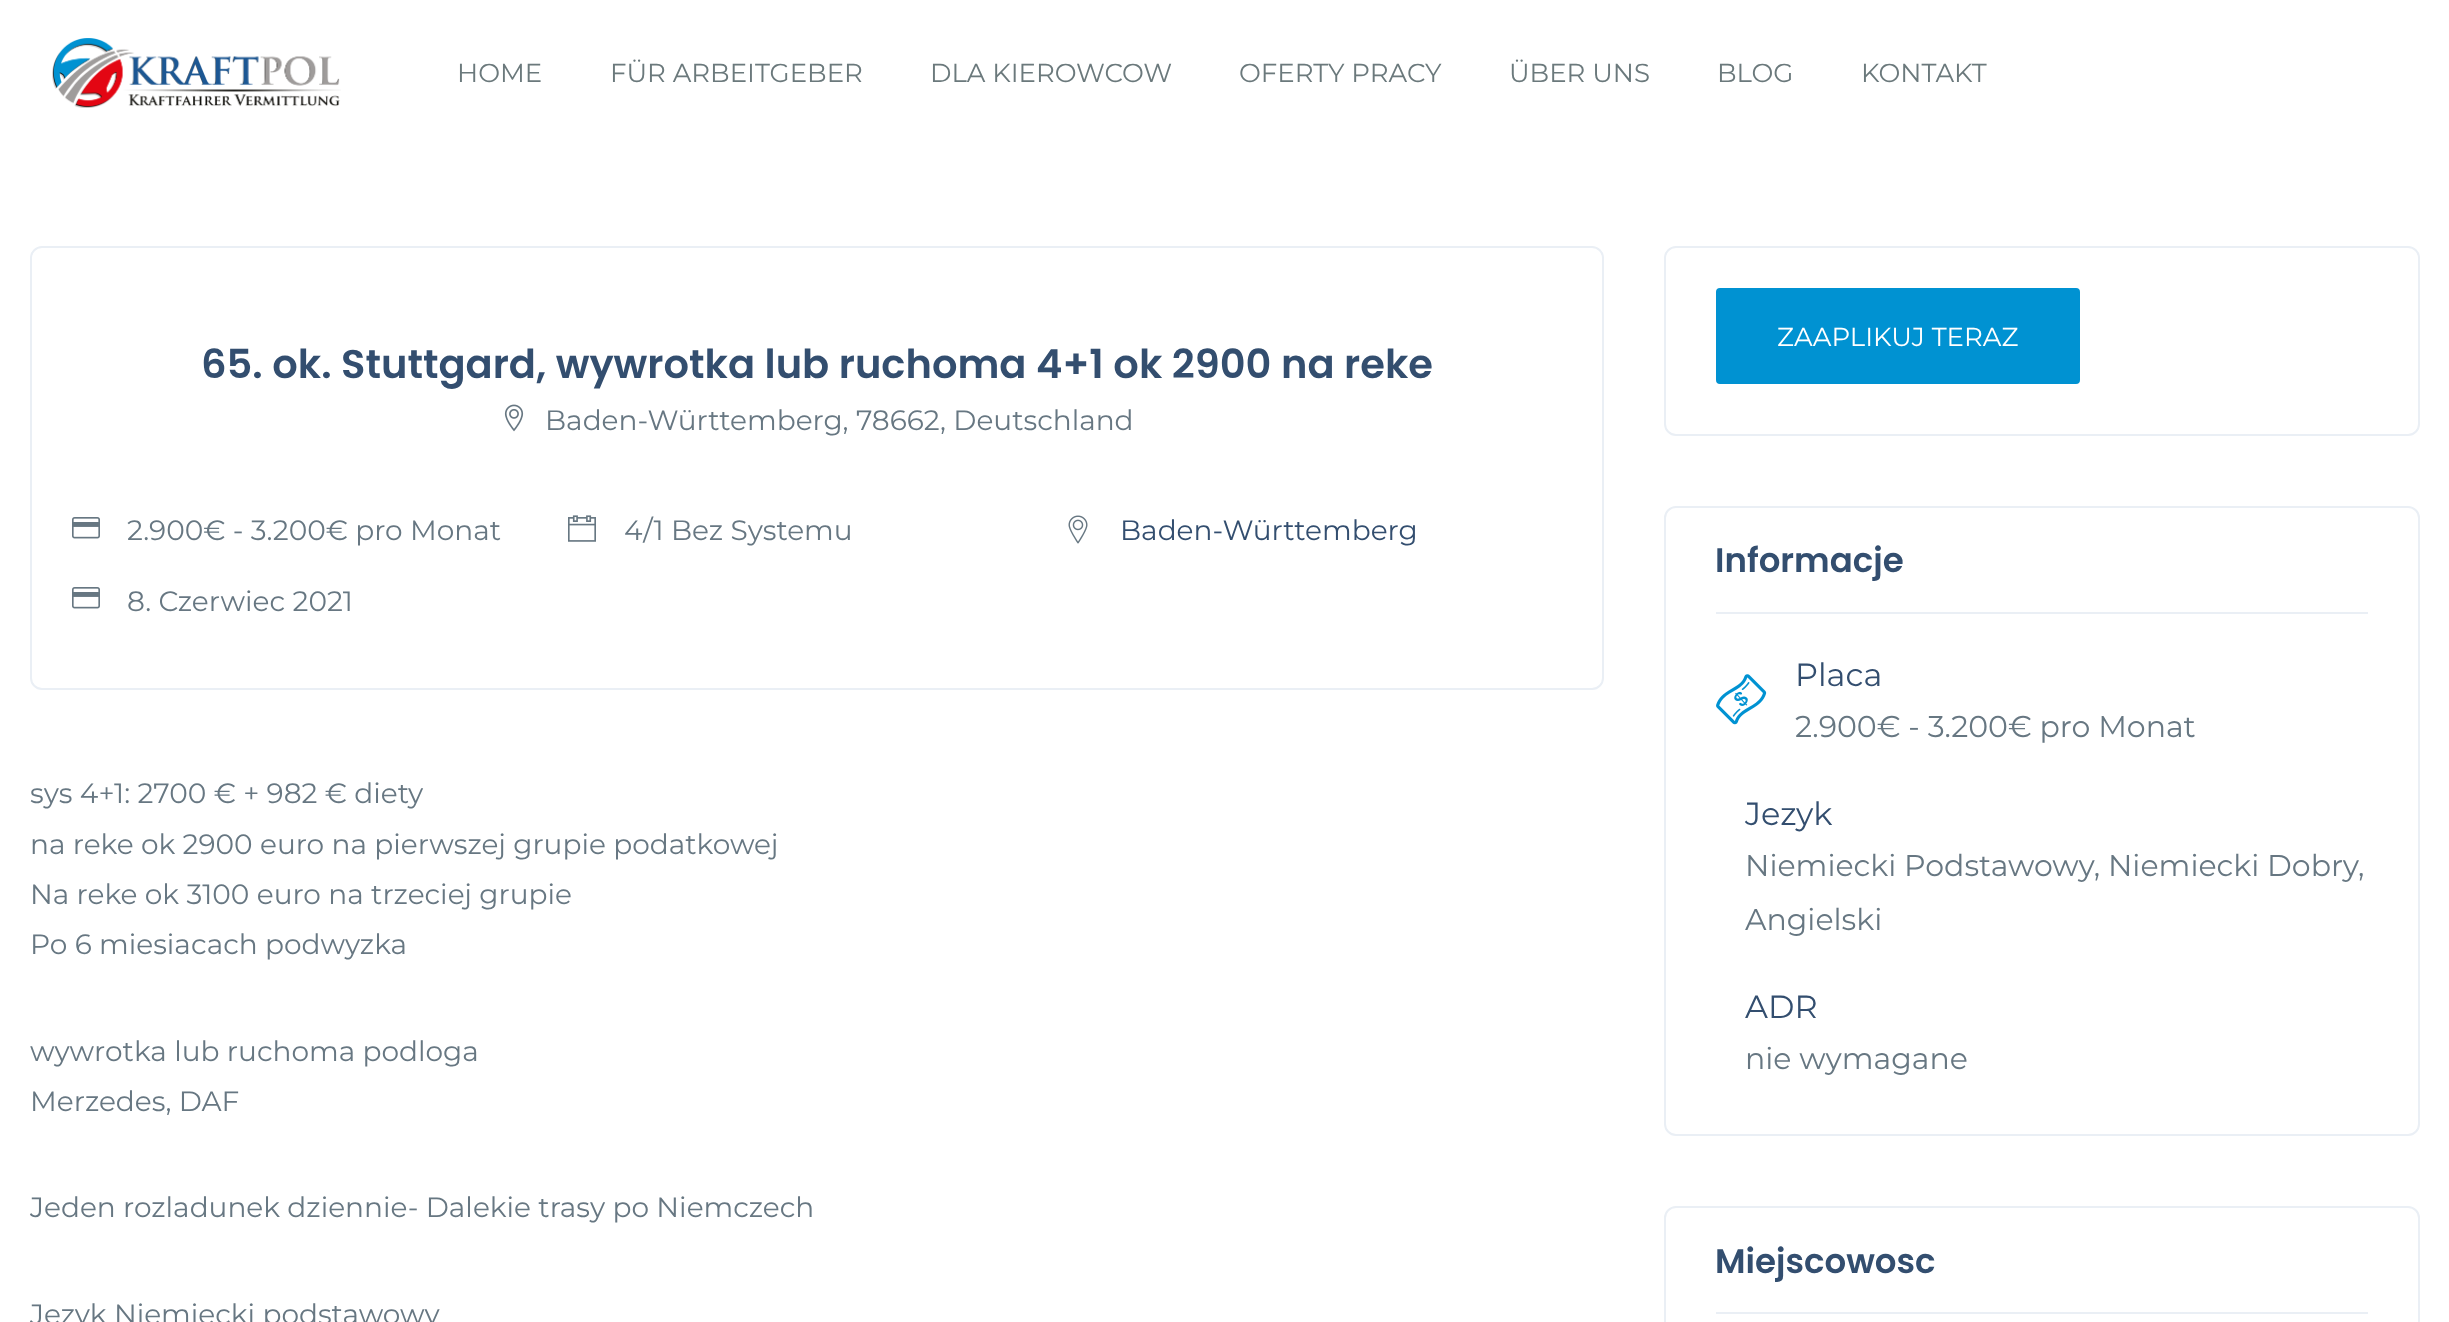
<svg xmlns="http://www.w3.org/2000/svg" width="2449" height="1322">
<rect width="100%" height="100%" fill="#fff"/>
<image x="52" y="38" width="289" height="70" href="media/1.png"/>
<text x="457" y="82" style="font-family:Montserrat;font-size:26px;fill:#6b797c">HOME</text>
<text x="610" y="82" style="font-family:Montserrat;font-size:26px;fill:#6b797c">FÜR ARBEITGEBER</text>
<text x="930" y="82" style="font-family:Montserrat;font-size:26px;fill:#6b797c">DLA KIEROWCOW</text>
<text x="1239" y="82" style="font-family:Montserrat;font-size:26px;fill:#6b797c">OFERTY PRACY</text>
<text x="1509" y="82" style="font-family:Montserrat;font-size:26px;fill:#6b797c">ÜBER UNS</text>
<text x="1717" y="82" style="font-family:Montserrat;font-size:26px;fill:#6b797c">BLOG</text>
<text x="1861" y="82" style="font-family:Montserrat;font-size:26px;fill:#6b797c">KONTAKT</text>
<rect x="31" y="247" width="1572" height="442" rx="11" fill="none" stroke="#eaeff5" stroke-width="2"/>
<text x="201" y="378" style="font-family:Poppins;font-size:40px;font-weight:600;fill:#334e6f">65. ok. Stuttgard, wywrotka lub ruchoma 4+1 ok 2900 na reke</text>
<image x="504" y="404" width="20" height="28" href="media/2.png"/>
<text x="545" y="430" style="font-family:Montserrat;font-size:28px;fill:#677782">Baden-Württemberg, 78662, Deutschland</text>
<image x="72" y="517" width="28" height="22" href="media/3.png"/>
<text x="127" y="540" style="font-family:Montserrat;font-size:28px;fill:#677782">2.900€ - 3.200€ pro Monat</text>
<image x="568" y="515" width="28" height="27" href="media/4.png"/>
<text x="624" y="540" style="font-family:Montserrat;font-size:28px;fill:#677782">4/1 Bez Systemu</text>
<image x="1068" y="515" width="20" height="29" href="media/5.png"/>
<text x="1120" y="540" style="font-family:Montserrat;font-size:28px;fill:#334e6f">Baden-Württemberg</text>
<image x="72" y="587" width="28" height="22" href="media/3.png"/>
<text x="127" y="611" style="font-family:Montserrat;font-size:28px;fill:#677782">8. Czerwiec 2021</text>
<text x="30" y="803" style="font-family:Montserrat;font-size:28px;fill:#677782">sys 4+1: 2700 € + 982 € diety</text>
<text x="30" y="854" style="font-family:Montserrat;font-size:28px;fill:#677782">na reke ok 2900 euro na pierwszej grupie podatkowej</text>
<text x="30" y="904" style="font-family:Montserrat;font-size:28px;fill:#677782">Na reke ok 3100 euro na trzeciej grupie</text>
<text x="30" y="954" style="font-family:Montserrat;font-size:28px;fill:#677782">Po 6 miesiacach podwyzka</text>
<text x="30" y="1061" style="font-family:Montserrat;font-size:28px;fill:#677782">wywrotka lub ruchoma podloga</text>
<text x="30" y="1111" style="font-family:Montserrat;font-size:28px;fill:#677782">Merzedes, DAF</text>
<text x="30" y="1217" style="font-family:Montserrat;font-size:28px;fill:#677782">Jeden rozladunek dziennie- Dalekie trasy po Niemczech</text>
<text x="30" y="1324" style="font-family:Montserrat;font-size:28px;fill:#677782">Jezyk Niemiecki podstawowy</text>
<rect x="1665" y="247" width="754" height="188" rx="11" fill="none" stroke="#eaeff5" stroke-width="2"/>
<rect x="1717" y="289" width="362" height="94" rx="3" fill="#0092d2" stroke="#0092d2" stroke-width="2"/>
<text x="1777" y="346" style="font-family:Montserrat;font-size:26px;fill:#fff">ZAAPLIKUJ TERAZ</text>
<rect x="1665" y="507" width="754" height="628" rx="11" fill="none" stroke="#eaeff5" stroke-width="2"/>
<rect x="1716" y="612" width="652" height="2" fill="#eaeff5"/>
<text x="1715" y="572" style="font-family:Poppins;font-size:34px;font-weight:600;fill:#334e6f">Informacje</text>
<image x="1716" y="674" width="51" height="51" href="media/6.png"/>
<text x="1795" y="686" style="font-family:Montserrat;font-size:32px;fill:#334e6f">Placa</text>
<text x="1795" y="737" style="font-family:Montserrat;font-size:30px;fill:#677782">2.900€ - 3.200€ pro Monat</text>
<text x="1745" y="825" style="font-family:Montserrat;font-size:32px;fill:#334e6f">Jezyk</text>
<text x="1745" y="876" style="font-family:Montserrat;font-size:30px;fill:#677782">Niemiecki Podstawowy, Niemiecki Dobry,</text>
<text x="1745" y="930" style="font-family:Montserrat;font-size:30px;fill:#677782">Angielski</text>
<text x="1745" y="1018" style="font-family:Montserrat;font-size:32px;fill:#334e6f">ADR</text>
<text x="1745" y="1069" style="font-family:Montserrat;font-size:30px;fill:#677782">nie wymagane</text>
<rect x="1665" y="1207" width="754" height="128" rx="11" fill="none" stroke="#eaeff5" stroke-width="2"/>
<rect x="1716" y="1312" width="652" height="2" fill="#eaeff5"/>
<text x="1715" y="1273" style="font-family:Poppins;font-size:34px;font-weight:600;fill:#334e6f">Miejscowosc</text>
</svg>
